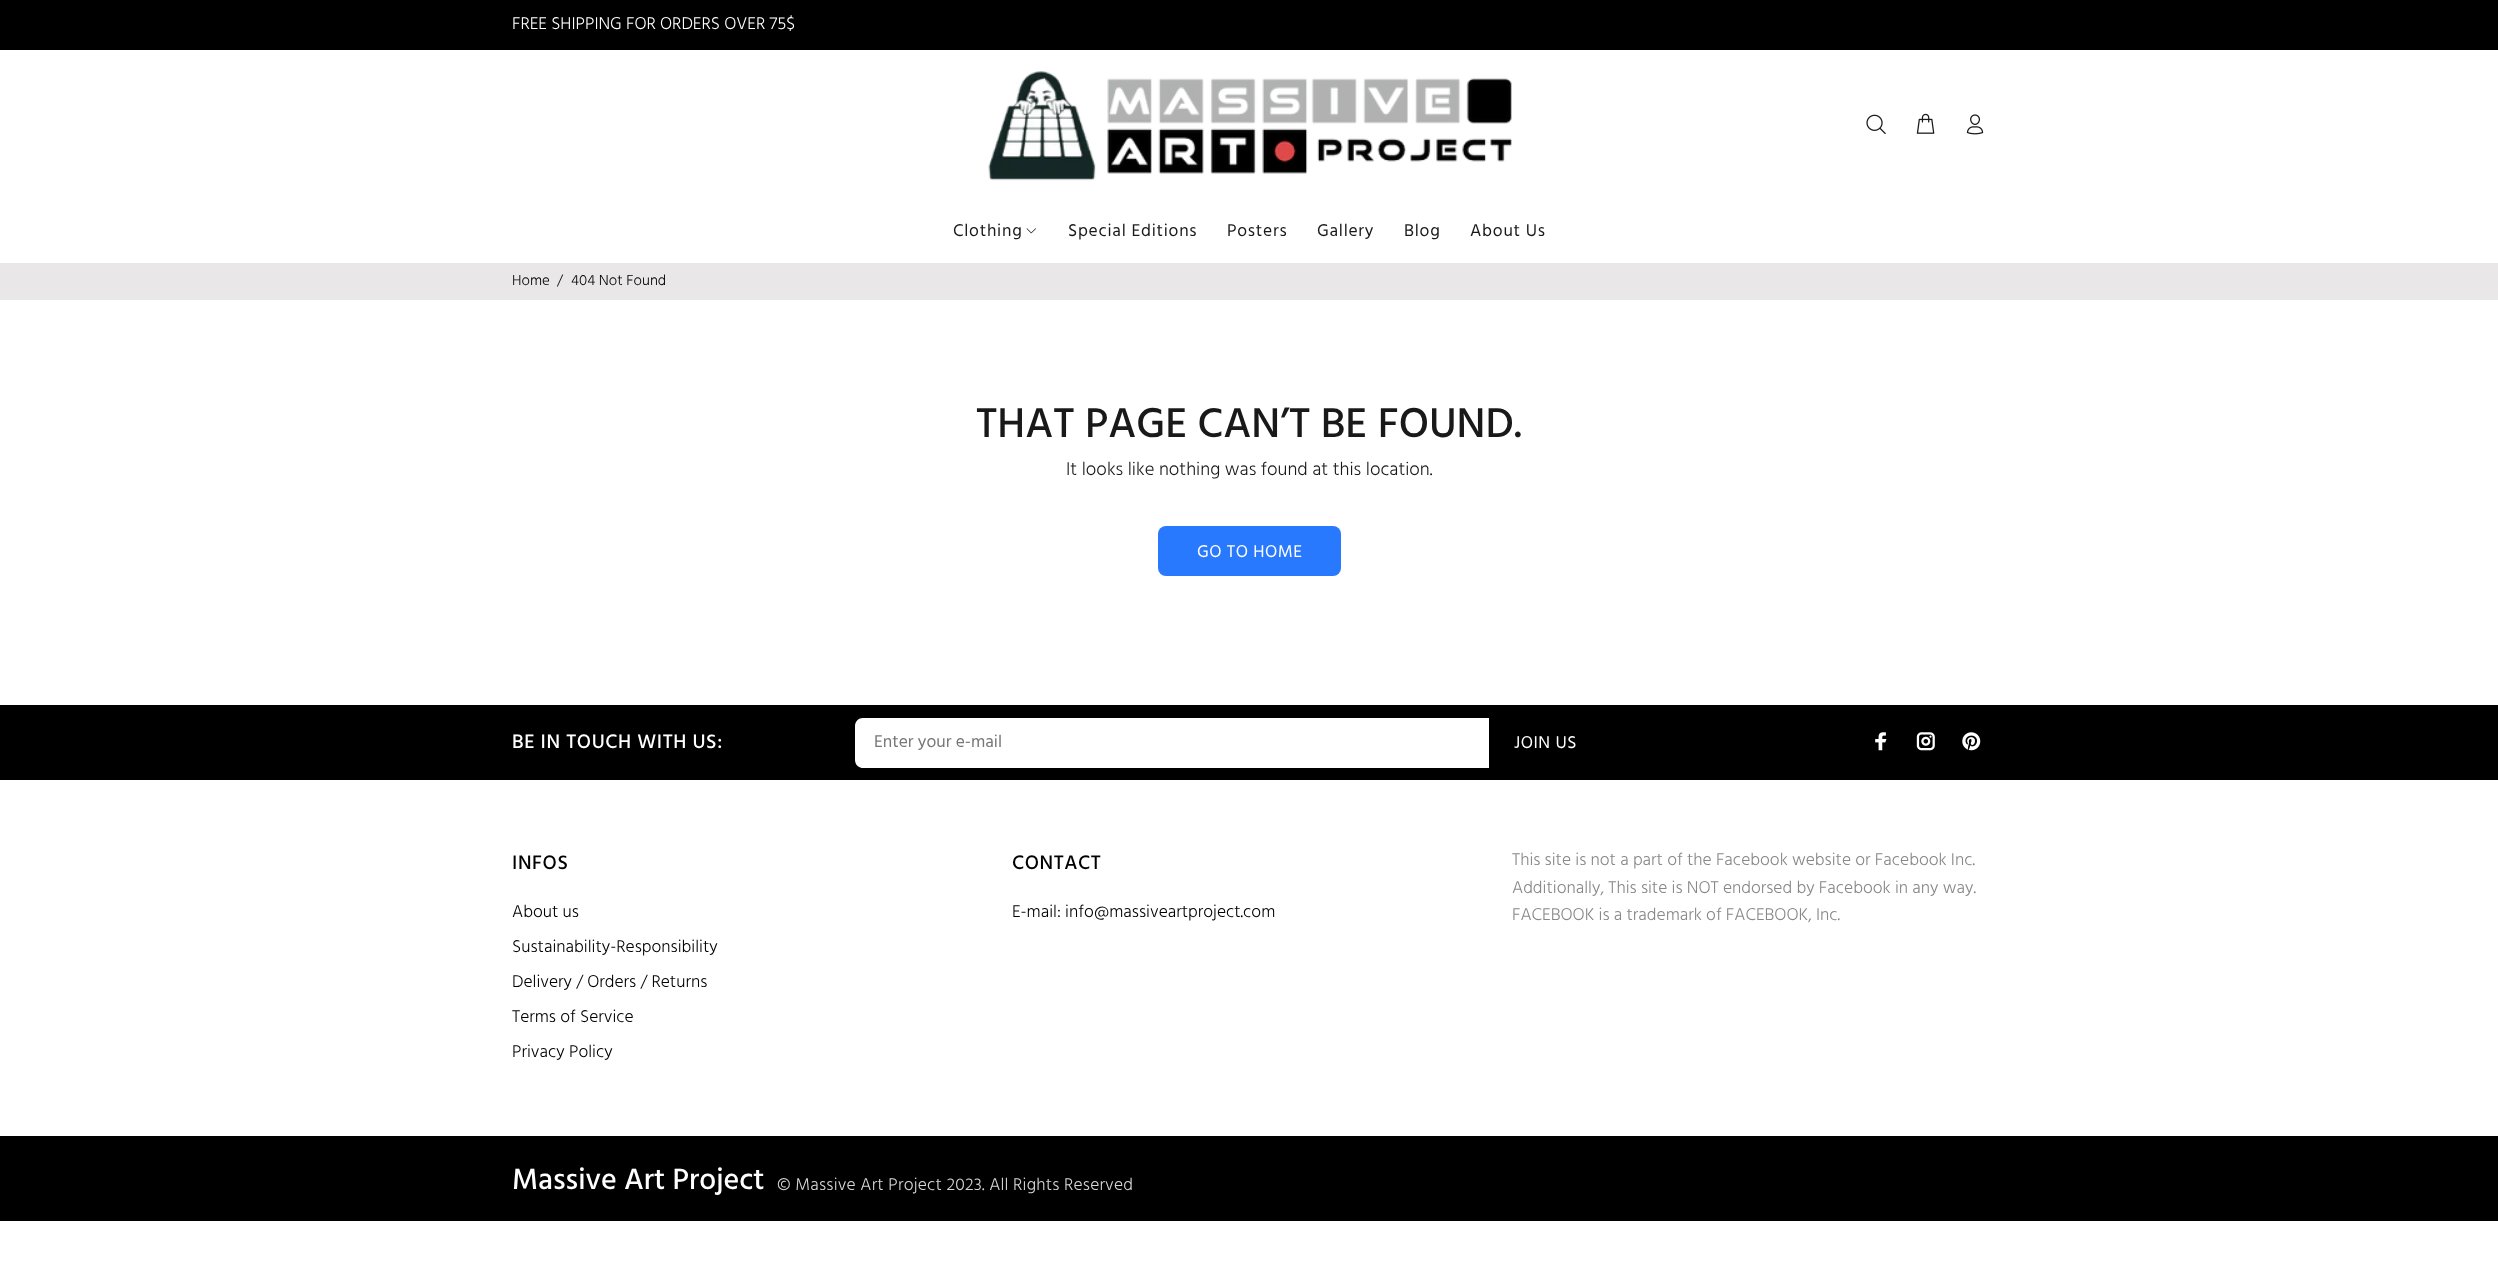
<svg xmlns="http://www.w3.org/2000/svg" width="2498" height="1281">
<rect width="100%" height="100%" fill="#fff"/>
<rect width="2498" height="50" fill="#000"/>
<text x="512" y="29" style="font-family:Hind;font-size:17.5px;font-weight:300;fill:#fff">FREE SHIPPING FOR ORDERS OVER 75$</text>
<image x="988" y="71" width="524" height="110" href="media/1.png"/>
<image x="1866" y="114" width="20" height="21" href="media/2.png"/>
<image x="1916" y="113" width="19" height="21" href="media/3.png"/>
<image x="1966" y="114" width="18" height="21" href="media/4.png"/>
<text x="953" y="236" style="font-family:Hind;font-size:17.5px;letter-spacing:0.75px;fill:#191919">Clothing</text>
<image x="1026" y="228" width="10" height="6" href="media/5.png"/>
<text x="1068" y="236" style="font-family:Hind;font-size:17.5px;letter-spacing:0.75px;fill:#191919">Special Editions</text>
<text x="1227" y="236" style="font-family:Hind;font-size:17.5px;letter-spacing:0.75px;fill:#191919">Posters</text>
<text x="1317" y="236" style="font-family:Hind;font-size:17.5px;letter-spacing:0.75px;fill:#191919">Gallery</text>
<text x="1404" y="236" style="font-family:Hind;font-size:17.5px;letter-spacing:0.75px;fill:#191919">Blog</text>
<text x="1470" y="236" style="font-family:Hind;font-size:17.5px;letter-spacing:0.75px;fill:#191919">About Us</text>
<rect y="263" width="2498" height="37" fill="#e9e7e7"/>
<text x="512" y="285" style="font-family:Hind;font-size:15px;font-weight:300;fill:#000">Home</text>
<text x="557" y="285" style="font-family:Hind;font-size:15px;font-weight:300;fill:#000">/</text>
<text x="571" y="285" style="font-family:Hind;font-size:15px;font-weight:300;fill:#000">404 Not Found</text>
<text x="976" y="437" style="font-family:Hind;font-size:42.5px;font-weight:500;fill:#191919">THAT PAGE CAN’T BE FOUND.</text>
<text x="1066" y="475" style="font-family:Hind;font-size:18.75px;font-weight:300;fill:#191919">It looks like nothing was found at this location.</text>
<rect x="1158" y="526" width="183" height="50" rx="8" fill="#2879fe"/>
<text x="1197" y="557" style="font-family:Hind;font-size:17.5px;letter-spacing:0.5px;fill:#fff">GO TO HOME</text>
<rect y="705" width="2498" height="75" fill="#000"/>
<text x="512" y="748" style="font-family:Hind;font-size:20px;font-weight:500;letter-spacing:0.6px;fill:#fff">BE IN TOUCH WITH US:</text>
<path d="M863 718h626v50h-626c-4.5 0-8-3.5-8-8v-34c0-4.5 3.5-8 8-8z" fill="#fff"/>
<text x="874" y="747" style="font-family:Hind;font-size:17.5px;fill:#777">Enter your e-mail</text>
<text x="1514" y="748" style="font-family:Hind;font-size:17.5px;letter-spacing:0.5px;fill:#fff">JOIN US</text>
<image x="1875" y="732" width="12" height="19" href="media/6.png"/>
<image x="1916" y="732" width="19" height="19" href="media/7.png"/>
<image x="1962" y="732" width="19" height="19" href="media/8.png"/>
<text x="512" y="869" style="font-family:Hind;font-size:20px;font-weight:500;letter-spacing:0.6px;fill:#000">INFOS</text>
<text x="512" y="917" style="font-family:Hind;font-size:17.5px;font-weight:300;fill:#000">About us</text>
<text x="512" y="952" style="font-family:Hind;font-size:17.5px;font-weight:300;fill:#000">Sustainability-Responsibility</text>
<text x="512" y="987" style="font-family:Hind;font-size:17.5px;font-weight:300;fill:#000">Delivery / Orders / Returns</text>
<text x="512" y="1022" style="font-family:Hind;font-size:17.5px;font-weight:300;fill:#000">Terms of Service</text>
<text x="512" y="1057" style="font-family:Hind;font-size:17.5px;font-weight:300;fill:#000">Privacy Policy</text>
<text x="1012" y="869" style="font-family:Hind;font-size:20px;font-weight:500;letter-spacing:0.6px;fill:#000">CONTACT</text>
<text x="1012" y="917" style="font-family:Hind;font-size:17.5px;font-weight:300;fill:#000">E-mail: info@massiveartproject.com</text>
<text x="1512" y="865" style="font-family:Hind;font-size:17.5px;font-weight:300;fill:#888">This site is not a part of the Facebook website or Facebook Inc.</text>
<text x="1512" y="893" style="font-family:Hind;font-size:17.5px;font-weight:300;fill:#888">Additionally, This site is NOT endorsed by Facebook in any way.</text>
<text x="1512" y="920" style="font-family:Hind;font-size:17.5px;font-weight:300;fill:#888">FACEBOOK is a trademark of FACEBOOK, Inc.</text>
<rect y="1136" width="2498" height="85" fill="#000"/>
<text x="512" y="1189" style="font-family:Hind;font-size:30px;font-weight:500;fill:#fff">Massive Art Project</text>
<text x="777" y="1190" style="font-family:Hind;font-size:17.5px;font-weight:300;letter-spacing:0.2px;fill:#d6d6d6">© Massive Art Project 2023. All Rights Reserved</text>
</svg>
